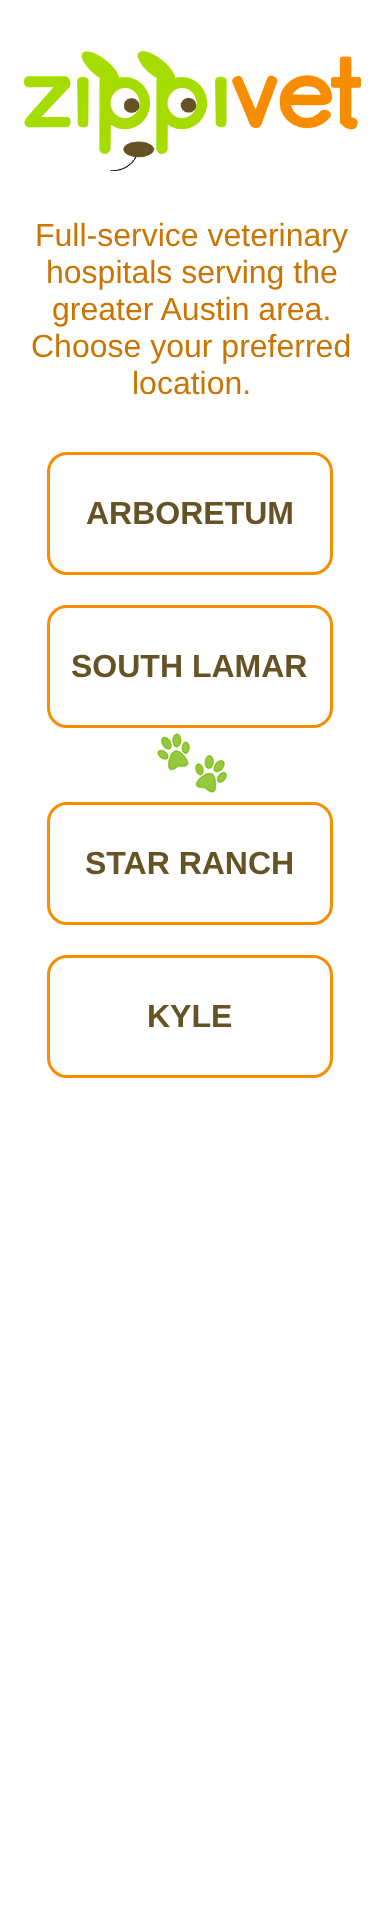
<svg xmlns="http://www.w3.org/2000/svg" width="383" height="1909">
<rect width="100%" height="100%" fill="#fff"/>
<image x="24" y="51" width="337" height="120" href="media/1.png"/>
<text x="35" y="246" style="font-family:Liberation Sans;font-size:32px;fill:#ca7503">Full-service veterinary</text>
<text x="46" y="283" style="font-family:Liberation Sans;font-size:32px;fill:#ca7503">hospitals serving the</text>
<text x="52" y="320" style="font-family:Liberation Sans;font-size:32px;fill:#ca7503">greater Austin area.</text>
<text x="31" y="357" style="font-family:Liberation Sans;font-size:32px;fill:#ca7503">Choose your preferred</text>
<text x="132" y="394" style="font-family:Liberation Sans;font-size:32px;fill:#ca7503">location.</text>
<rect x="48.5" y="453.5" width="283" height="120" rx="18.5" fill="none" stroke="#f78d00" stroke-width="3"/>
<text x="86" y="524" style="font-family:Liberation Sans;font-size:32px;font-weight:bold;fill:#655325">ARBORETUM</text>
<rect x="48.5" y="606.5" width="283" height="120" rx="18.5" fill="none" stroke="#f78d00" stroke-width="3"/>
<text x="71" y="677" style="font-family:Liberation Sans;font-size:32px;font-weight:bold;fill:#655325">SOUTH LAMAR</text>
<image x="157" y="733" width="70" height="60" href="media/2.png"/>
<rect x="48.5" y="803.5" width="283" height="120" rx="18.5" fill="none" stroke="#f78d00" stroke-width="3"/>
<text x="85" y="874" style="font-family:Liberation Sans;font-size:32px;font-weight:bold;fill:#655325">STAR RANCH</text>
<rect x="48.5" y="956.5" width="283" height="120" rx="18.5" fill="none" stroke="#f78d00" stroke-width="3"/>
<text x="147" y="1027" style="font-family:Liberation Sans;font-size:32px;font-weight:bold;fill:#655325">KYLE</text>
</svg>
